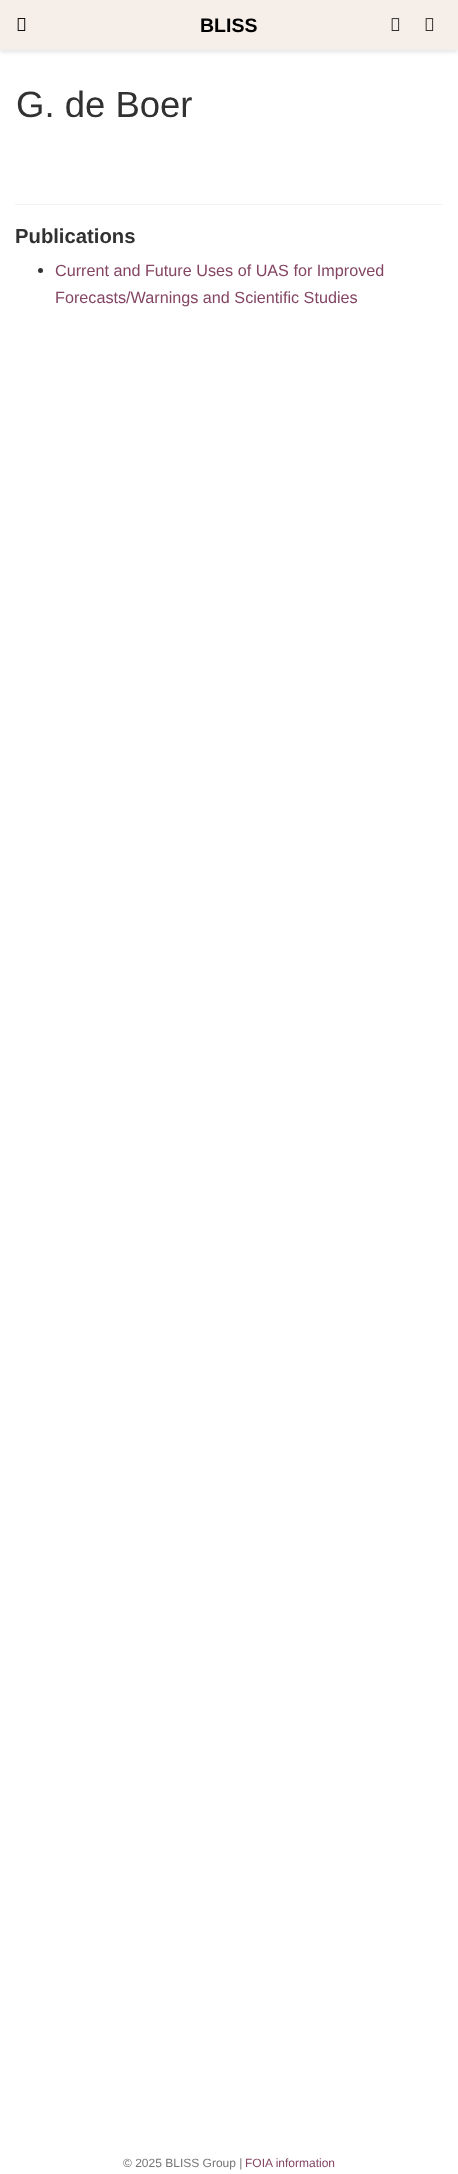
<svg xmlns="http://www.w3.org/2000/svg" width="458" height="2174">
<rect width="100%" height="100%" fill="#fff"/>
<rect y="2" width="458" height="50" fill="#0000001c" filter="blur(2px)"/>
<rect width="458" height="50" fill="#f6eee9"/>
<image x="17" y="18" width="9" height="13" href="media/1.png"/>
<text x="200" y="32" style="font-family:Liberation Sans;font-size:19.5px;font-weight:bold;fill:#000">BLISS</text>
<image x="391" y="18" width="9" height="13" href="media/2.png"/>
<image x="425" y="18" width="9" height="13" href="media/2.png"/>
<text x="16" y="117" style="font-family:Liberation Sans;font-size:36.5px;fill:#313131">G. de Boer</text>
<rect x="15" y="204" width="428" height="1" fill="#f2f2f2"/>
<text x="15" y="243" style="font-family:Liberation Sans;font-size:20.25px;font-weight:bold;fill:#313131">Publications</text>
<circle cx="40.5" cy="270.5" r="2.5" fill="#333"/>
<text x="55" y="276" style="font-family:Liberation Sans;font-size:16.2px;fill:#844562">Current and Future Uses of UAS for Improved</text>
<text x="55" y="303" style="font-family:Liberation Sans;font-size:16.2px;fill:#844562">Forecasts/Warnings and Scientific Studies</text>
<text x="123" y="2167" style="font-family:Liberation Sans;font-size:12px;fill:#757575">© 2025 BLISS Group |</text>
<text x="245" y="2167" style="font-family:Liberation Sans;font-size:12px;fill:#844562">FOIA information</text>
</svg>
